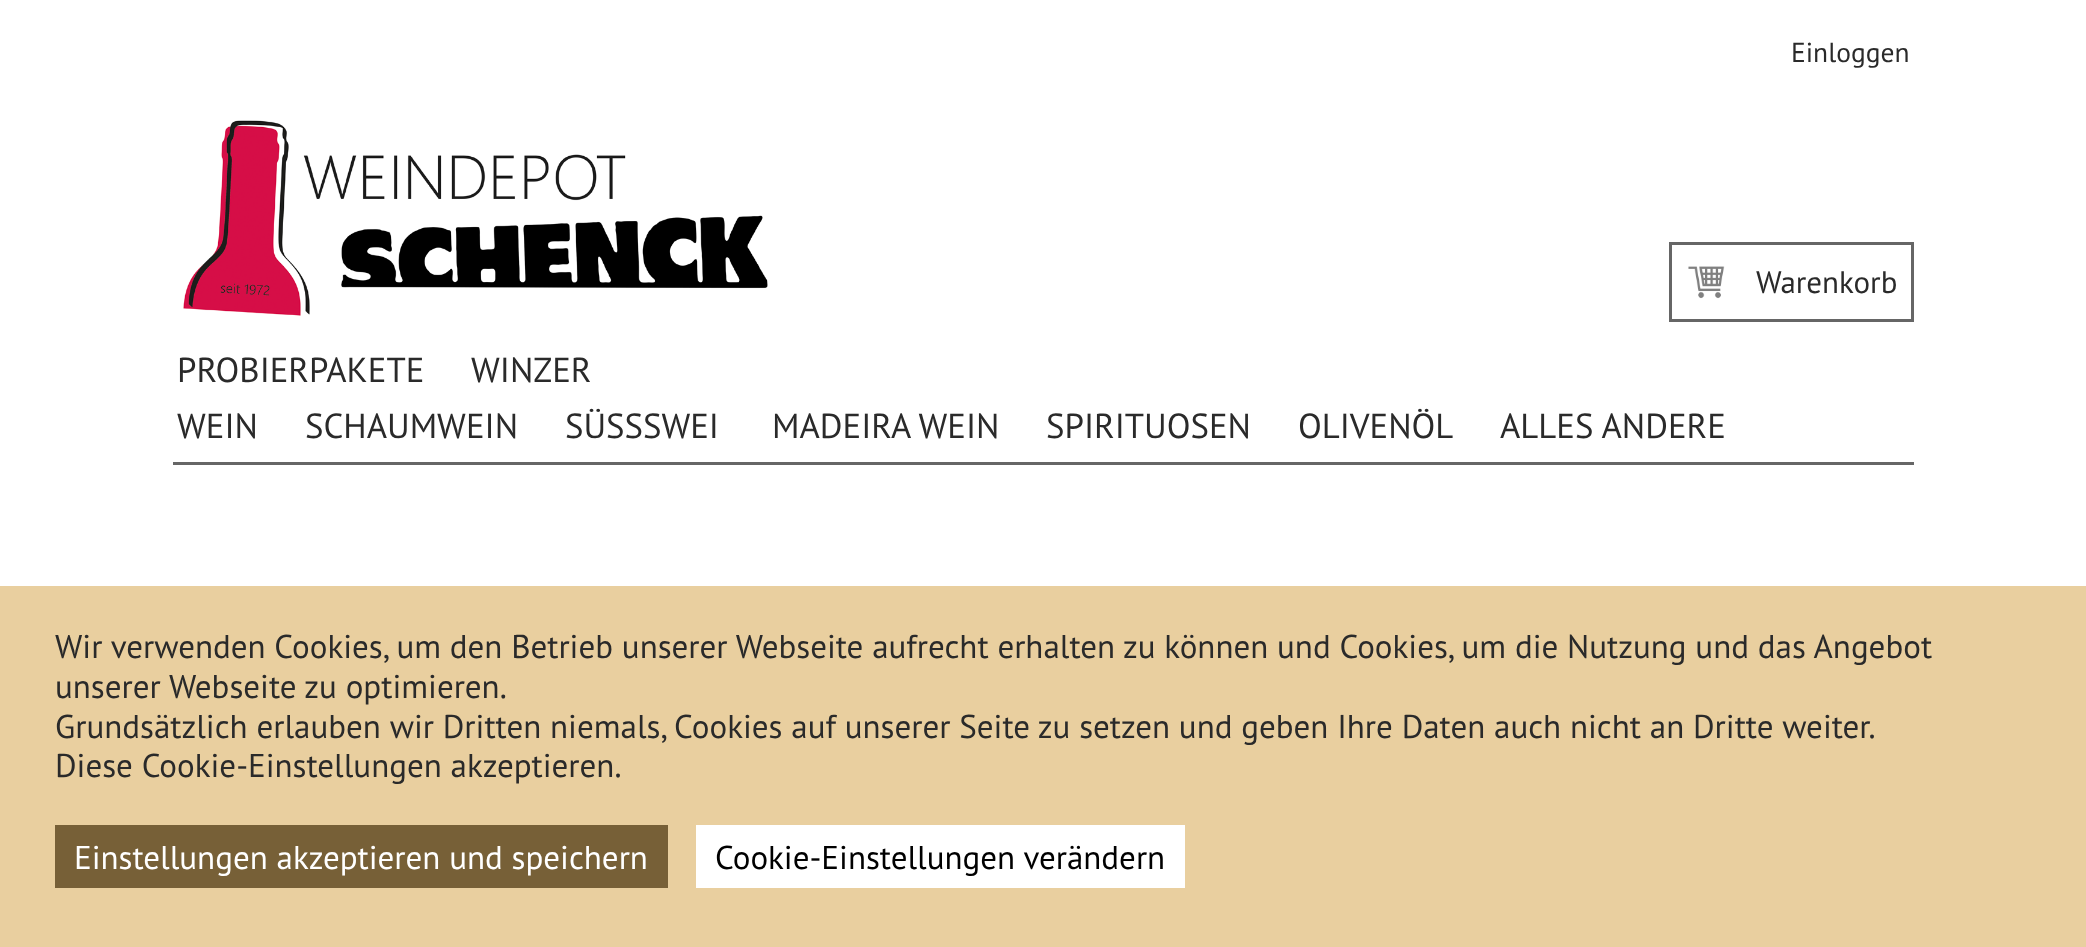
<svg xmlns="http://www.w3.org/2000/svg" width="2086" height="947">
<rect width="100%" height="100%" fill="#fff"/>
<text x="1791" y="62" style="font-family:PT Sans;font-size:27.5px;fill:#2a2a2a">Einloggen</text>
<image x="183" y="120" width="585" height="196" href="media/1.png"/>
<image x="1688" y="266" width="37" height="33" href="media/2.png"/>
<rect x="1670.5" y="243.5" width="242" height="77" fill="none" stroke="#666" stroke-width="3"/>
<text x="1756" y="293" style="font-family:PT Sans;font-size:31px;fill:#2a2a2a">Warenkorb</text>
<text x="177" y="382" style="font-family:PT Sans;font-size:34.75px;fill:#2a2a2a">PROBIERPAKETE</text>
<text x="471" y="382" style="font-family:PT Sans;font-size:34.75px;fill:#2a2a2a">WINZER</text>
<rect x="173" y="462" width="1741" height="3" fill="#666"/>
<text x="177" y="438" style="font-family:PT Sans;font-size:34.75px;fill:#2a2a2a">WEIN</text>
<text x="305" y="438" style="font-family:PT Sans;font-size:34.75px;fill:#2a2a2a">SCHAUMWEIN</text>
<text x="565" y="438" style="font-family:PT Sans;font-size:34.75px;fill:#2a2a2a">SÜSSSWEI</text>
<text x="772" y="438" style="font-family:PT Sans;font-size:34.75px;fill:#2a2a2a">MADEIRA WEIN</text>
<text x="1046" y="438" style="font-family:PT Sans;font-size:34.75px;fill:#2a2a2a">SPIRITUOSEN</text>
<text x="1298" y="438" style="font-family:PT Sans;font-size:34.75px;fill:#2a2a2a">OLIVENÖL</text>
<text x="1500" y="438" style="font-family:PT Sans;font-size:34.75px;fill:#2a2a2a">ALLES ANDERE</text>
<rect y="586" width="2086" height="361" fill="#e9cf9f"/>
<text x="55" y="658" style="font-family:PT Sans;font-size:33px;fill:#2a2a2a">Wir verwenden Cookies, um den Betrieb unserer Webseite aufrecht erhalten zu können und Cookies, um die Nutzung und das Angebot</text>
<text x="55" y="698" style="font-family:PT Sans;font-size:33px;fill:#2a2a2a">unserer Webseite zu optimieren.</text>
<text x="55" y="738" style="font-family:PT Sans;font-size:33px;fill:#2a2a2a">Grundsätzlich erlauben wir Dritten niemals, Cookies auf unserer Seite zu setzen und geben Ihre Daten auch nicht an Dritte weiter.</text>
<text x="55" y="777" style="font-family:PT Sans;font-size:33px;fill:#2a2a2a">Diese Cookie-Einstellungen akzeptieren.</text>
<rect x="55" y="825" width="613" height="63" fill="#776037"/>
<text x="74" y="869" style="font-family:PT Sans;font-size:33px;fill:#fff">Einstellungen akzeptieren und speichern</text>
<rect x="696" y="825" width="489" height="63" fill="#fff"/>
<text x="715" y="869" style="font-family:PT Sans;font-size:33px;fill:#000">Cookie-Einstellungen verändern</text>
</svg>
